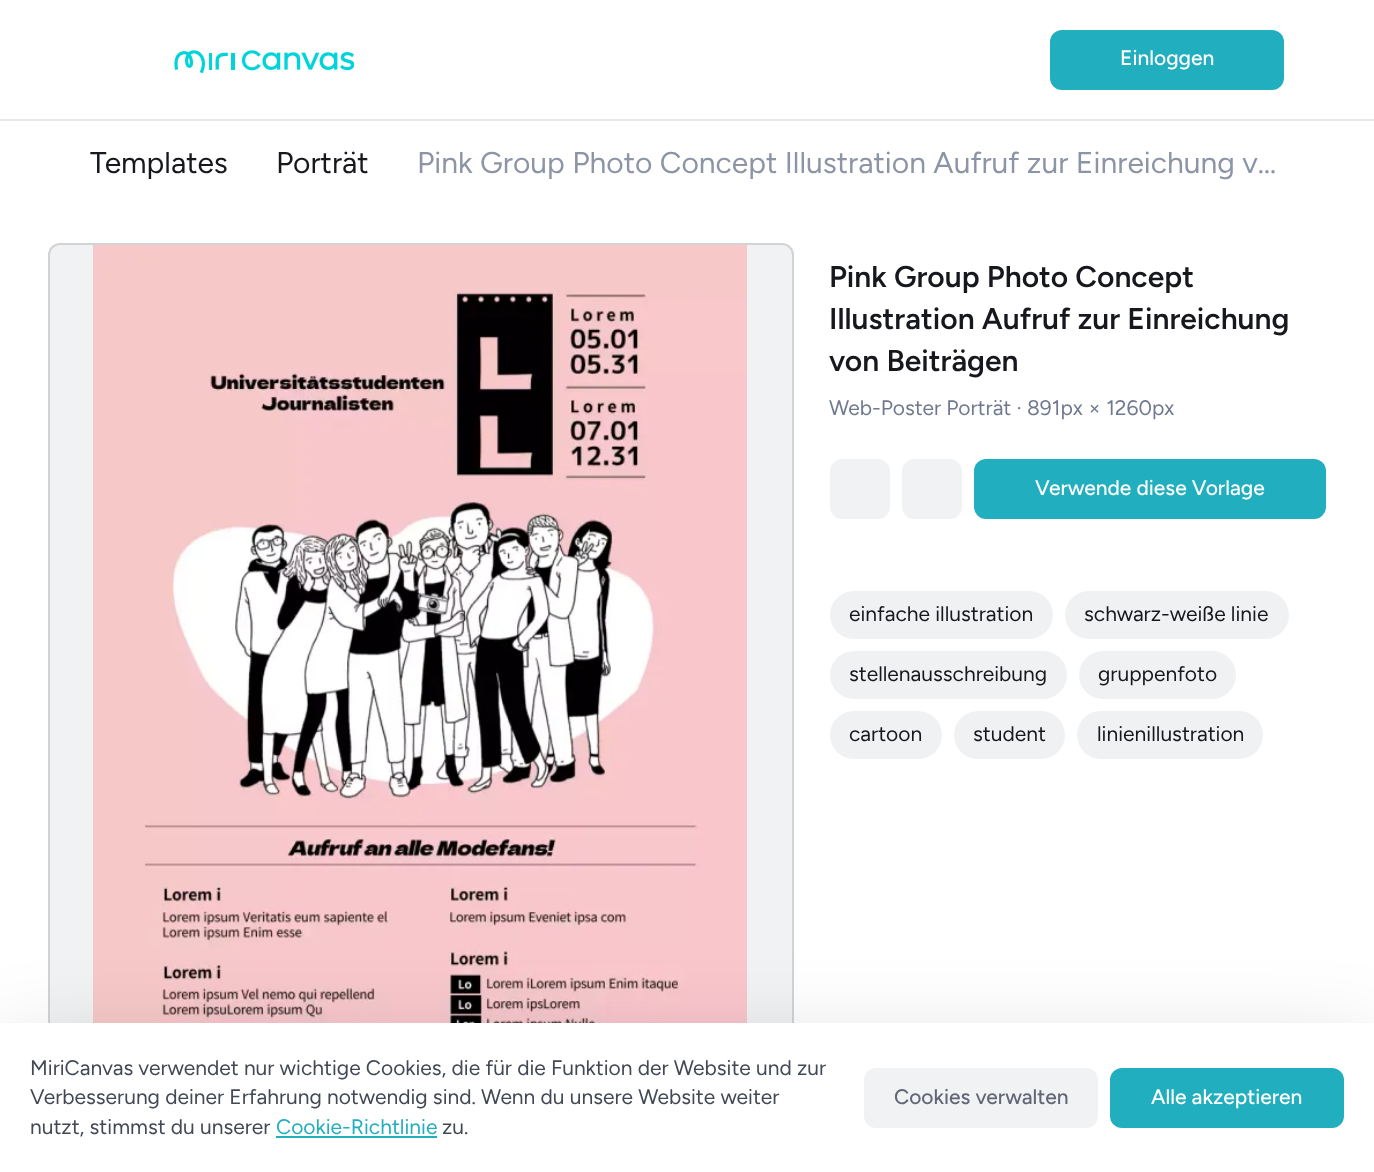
<svg xmlns="http://www.w3.org/2000/svg" width="1374" height="1172">
<rect width="100%" height="100%" fill="#fff"/>
<rect y="119" width="1374" height="2" fill="#e6e8eb"/>
<image x="174" y="50" width="180" height="23" href="media/1.png"/>
<rect x="1050" y="30" width="234" height="60" rx="12" fill="#21afbf"/>
<text x="1120" y="65" style="font-family:Figtree;font-size:21px;font-weight:500;fill:#fff">Einloggen</text>
<text x="90" y="173" style="font-family:Figtree;font-size:30px;fill:#16181d">Templates</text>
<text x="276" y="173" style="font-family:Figtree;font-size:30px;fill:#16181d">Porträt</text>
<text x="417" y="173" style="font-family:Figtree;font-size:30px;fill:#8d94a5">Pink Group Photo Concept Illustration Aufruf zur Einreichung v…</text>
<rect x="48" y="243" width="746" height="927" rx="12" fill="#f1f2f3"/>
<rect x="49" y="244" width="744" height="925" rx="11" fill="none" stroke="#23242a26" stroke-width="2"/>
<image x="93" y="244" width="654" height="779" href="media/2.png"/>
<text x="829" y="287" style="font-family:Figtree;font-size:30px;font-weight:600;fill:#16181d">Pink Group Photo Concept</text>
<text x="829" y="329" style="font-family:Figtree;font-size:30px;font-weight:600;fill:#16181d">Illustration Aufruf zur Einreichung</text>
<text x="829" y="371" style="font-family:Figtree;font-size:30px;font-weight:600;fill:#16181d">von Beiträgen</text>
<text x="829" y="415" style="font-family:Figtree;font-size:21px;fill:#70798f">Web-Poster Porträt · 891px × 1260px</text>
<rect x="830" y="459" width="60" height="60" rx="12" fill="#f1f2f4"/>
<rect x="902" y="459" width="60" height="60" rx="12" fill="#f1f2f4"/>
<rect x="974" y="459" width="352" height="60" rx="12" fill="#21afbf"/>
<text x="1035" y="495" style="font-family:Figtree;font-size:21px;font-weight:500;fill:#fff">Verwende diese Vorlage</text>
<rect x="830" y="591" width="223" height="48" rx="24" fill="#f0f1f3"/>
<text x="849" y="621" style="font-family:Figtree;font-size:21px;fill:#16181d">einfache illustration</text>
<rect x="1065" y="591" width="224" height="48" rx="24" fill="#f0f1f3"/>
<text x="1084" y="621" style="font-family:Figtree;font-size:21px;fill:#16181d">schwarz-weiße linie</text>
<rect x="830" y="651" width="237" height="48" rx="24" fill="#f0f1f3"/>
<text x="849" y="681" style="font-family:Figtree;font-size:21px;fill:#16181d">stellenausschreibung</text>
<rect x="1079" y="651" width="157" height="48" rx="24" fill="#f0f1f3"/>
<text x="1098" y="681" style="font-family:Figtree;font-size:21px;fill:#16181d">gruppenfoto</text>
<rect x="830" y="711" width="112" height="48" rx="24" fill="#f0f1f3"/>
<text x="849" y="741" style="font-family:Figtree;font-size:21px;fill:#16181d">cartoon</text>
<rect x="954" y="711" width="111" height="48" rx="24" fill="#f0f1f3"/>
<text x="973" y="741" style="font-family:Figtree;font-size:21px;fill:#16181d">student</text>
<rect x="1077" y="711" width="186" height="48" rx="24" fill="#f0f1f3"/>
<text x="1097" y="741" style="font-family:Figtree;font-size:21px;fill:#16181d">linienillustration</text>
<rect y="1059" width="1374" height="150" fill="#00000033" filter="blur(48px)"/>
<rect y="1023" width="1374" height="149" fill="#fff"/>
<text x="30" y="1075" style="font-family:Figtree;font-size:21px;fill:#434856">MiriCanvas verwendet nur wichtige Cookies, die für die Funktion der Website und zur</text>
<text x="30" y="1104" style="font-family:Figtree;font-size:21px;fill:#434856">Verbesserung deiner Erfahrung notwendig sind. Wenn du unsere Website weiter</text>
<text x="30" y="1134" style="font-family:Figtree;font-size:21px;fill:#434856">nutzt, stimmst du unserer</text>
<text x="276" y="1134" style="font-family:Figtree;font-size:21px;fill:#21afbf">Cookie-Richtlinie</text>
<rect x="276" y="1136" width="161" height="2" fill="#21afbf"/>
<text x="442" y="1134" style="font-family:Figtree;font-size:21px;fill:#434856">zu.</text>
<rect x="864" y="1068" width="234" height="60" rx="12" fill="#f1f2f4"/>
<text x="894" y="1104" style="font-family:Figtree;font-size:21px;font-weight:500;fill:#626677">Cookies verwalten</text>
<rect x="1110" y="1068" width="234" height="60" rx="12" fill="#21afbf"/>
<text x="1151" y="1104" style="font-family:Figtree;font-size:21px;font-weight:500;fill:#fff">Alle akzeptieren</text>
</svg>
